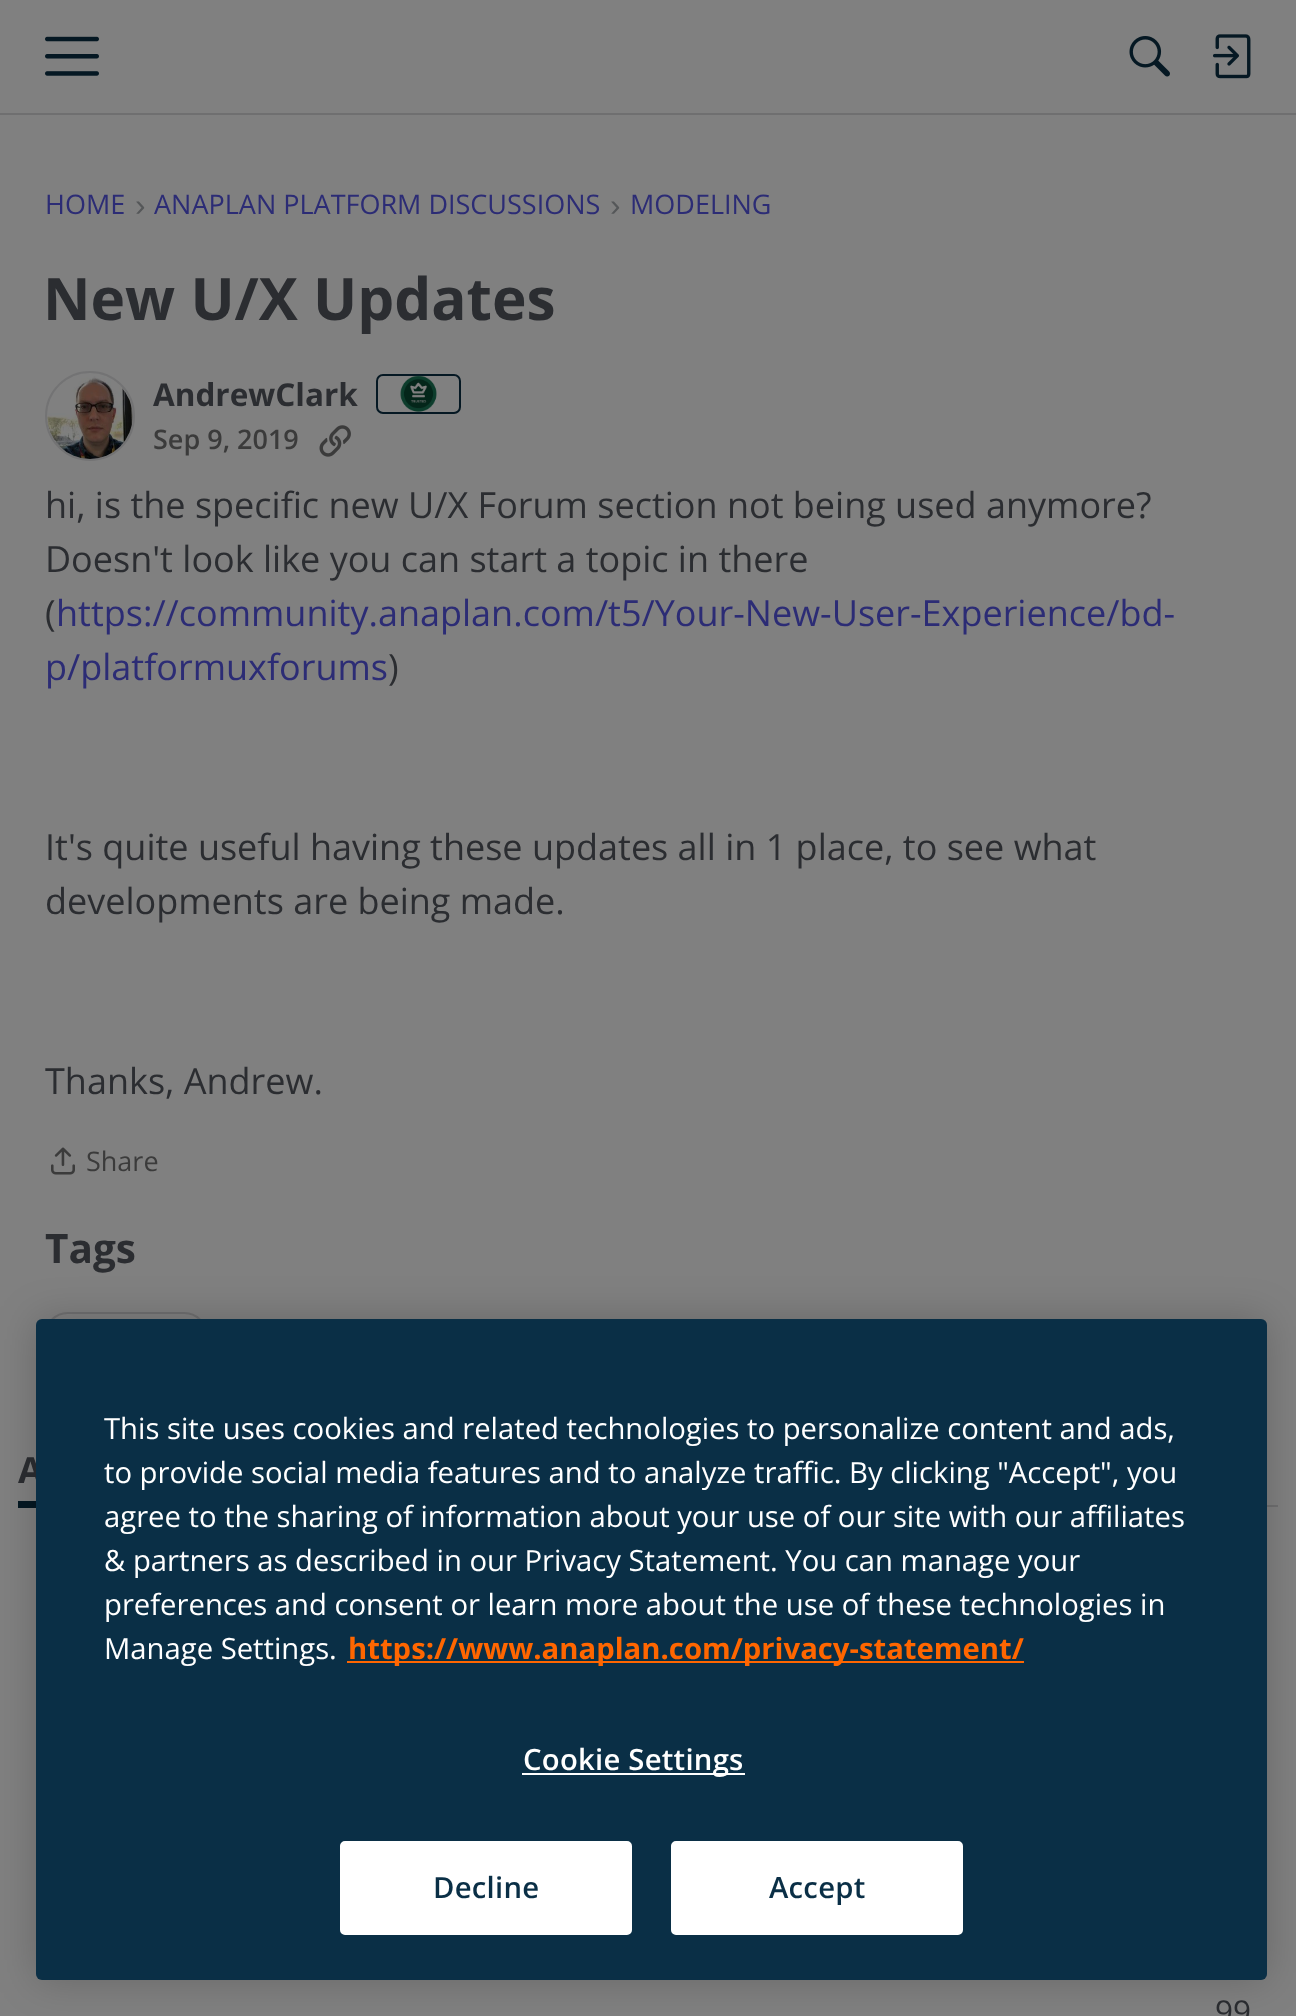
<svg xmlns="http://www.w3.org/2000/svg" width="1296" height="2016">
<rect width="100%" height="100%" fill="#808080"/>
<rect y="113" width="1296" height="2" fill="#6f6f70"/>
<image x="45" y="36" width="54" height="40" href="media/1.png"/>
<image x="1129" y="36" width="41" height="41" href="media/2.png"/>
<image x="1213" y="34" width="38" height="45" href="media/3.png"/>
<text x="45" y="214" style="font-family:Open Sans;font-size:27px;fill:#2c2c75">HOME</text>
<text x="135" y="216" style="font-family:Liberation Sans;font-size:31.5px;fill:#555759">›</text>
<text x="154" y="214" style="font-family:Open Sans;font-size:27px;fill:#2c2c75">ANAPLAN PLATFORM DISCUSSIONS</text>
<text x="610" y="216" style="font-family:Liberation Sans;font-size:31.5px;fill:#555759">›</text>
<text x="630" y="214" style="font-family:Open Sans;font-size:27px;fill:#2c2c75">MODELING</text>
<text x="43" y="320" style="font-family:Open Sans;font-size:58.5px;font-weight:bold;fill:#2b2d31">New U/X Updates</text>
<circle cx="90" cy="416" r="44" fill="none" stroke="#737374" stroke-width="2"/>
<image x="47" y="376" width="86" height="83" href="media/4.png"/>
<text x="153" y="406" style="font-family:Open Sans;font-size:31.5px;font-weight:bold;fill:#2b2d31">AndrewClark</text>
<rect x="377" y="375" width="83" height="38" rx="6" fill="none" stroke="#051823" stroke-width="2"/>
<image x="400" y="375" width="37" height="37" href="media/5.png"/>
<text x="153" y="449" style="font-family:Open Sans;font-size:27px;font-weight:600;fill:#3b3b3b">Sep 9, 2019</text>
<image x="319" y="425" width="32" height="32" href="media/6.png"/>
<text x="45" y="518" style="font-family:Open Sans;font-size:36px;fill:#2b2d31">hi, is the specific new U/X Forum section not being used anymore?</text>
<text x="45" y="572" style="font-family:Open Sans;font-size:36px;fill:#2b2d31">Doesn't look like you can start a topic in there</text>
<text x="45" y="626" style="font-family:Open Sans;font-size:36px;fill:#2b2d31">(</text>
<text x="56" y="626" style="font-family:Open Sans;font-size:36px;fill:#2c2c75">https://community.anaplan.com/t5/Your-New-User-Experience/bd-</text>
<text x="45" y="680" style="font-family:Open Sans;font-size:36px;fill:#2c2c75">p/platformuxforums</text>
<text x="388" y="680" style="font-family:Open Sans;font-size:36px;fill:#2b2d31">)</text>
<text x="45" y="860" style="font-family:Open Sans;font-size:36px;fill:#2b2d31">It's quite useful having these updates all in 1 place, to see what</text>
<text x="45" y="914" style="font-family:Open Sans;font-size:36px;fill:#2b2d31">developments are being made.</text>
<text x="45" y="1094" style="font-family:Open Sans;font-size:36px;fill:#2b2d31">Thanks, Andrew.</text>
<image x="51" y="1147" width="24" height="28" href="media/7.png"/>
<text x="86" y="1171" style="font-family:Open Sans;font-size:27px;fill:#3b3b3b">Share</text>
<text x="45" y="1263" style="font-family:Open Sans;font-size:40.5px;font-weight:bold;fill:#2b2d31">Tags</text>
<rect x="46" y="1313" width="160" height="43" rx="21.5" fill="none" stroke="#6f6f70" stroke-width="2"/>
<rect x="1267" y="1505" width="11" height="2" fill="#6f6f70"/>
<text x="18" y="1483" style="font-family:Open Sans;font-size:36px;font-weight:bold;fill:#2b2d31">A</text>
<rect x="18" y="1501" width="18" height="7" fill="#051823"/>
<text x="1215" y="2023" style="font-family:Open Sans;font-size:31.5px;fill:#2b2d31">99</text>
<rect x="36" y="1319" width="1231" height="661" rx="6" fill="#00000033" filter="blur(20px)"/>
<rect x="36" y="1319" width="1231" height="661" rx="6" fill="#0a2f46"/>
<text x="104" y="1439" style="font-family:Open Sans;font-size:29.25px;fill:#fff">This site uses cookies and related technologies to personalize content and ads,</text>
<text x="104" y="1483" style="font-family:Open Sans;font-size:29.25px;fill:#fff">to provide social media features and to analyze traffic. By clicking "Accept", you</text>
<text x="104" y="1527" style="font-family:Open Sans;font-size:29.25px;fill:#fff">agree to the sharing of information about your use of our site with our affiliates</text>
<text x="104" y="1571" style="font-family:Open Sans;font-size:29.25px;fill:#fff">&amp; partners as described in our Privacy Statement. You can manage your</text>
<text x="104" y="1615" style="font-family:Open Sans;font-size:29.25px;fill:#fff">preferences and consent or learn more about the use of these technologies in</text>
<text x="104" y="1659" style="font-family:Open Sans;font-size:29.25px;fill:#fff">Manage Settings.</text>
<rect x="347" y="1661" width="677" height="2" fill="#f60"/>
<text x="348" y="1659" style="font-family:Open Sans;font-size:29.25px;font-weight:bold;fill:#f60">https://www.anaplan.com/privacy-statement/</text>
<rect x="522" y="1773" width="223" height="2" fill="#fff"/>
<text x="523" y="1770" style="font-family:Open Sans;font-size:29.25px;font-weight:600;letter-spacing:0.25px;fill:#fff">Cookie Settings</text>
<rect x="341" y="1842" width="290" height="92" rx="4" fill="#fff" stroke="#fff" stroke-width="2"/>
<text x="433" y="1898" style="font-family:Open Sans;font-size:29.25px;font-weight:600;letter-spacing:0.25px;fill:#0a2f46">Decline</text>
<rect x="672" y="1842" width="290" height="92" rx="4" fill="#fff" stroke="#fff" stroke-width="2"/>
<text x="769" y="1898" style="font-family:Open Sans;font-size:29.25px;font-weight:600;letter-spacing:0.25px;fill:#0a2f46">Accept</text>
</svg>
